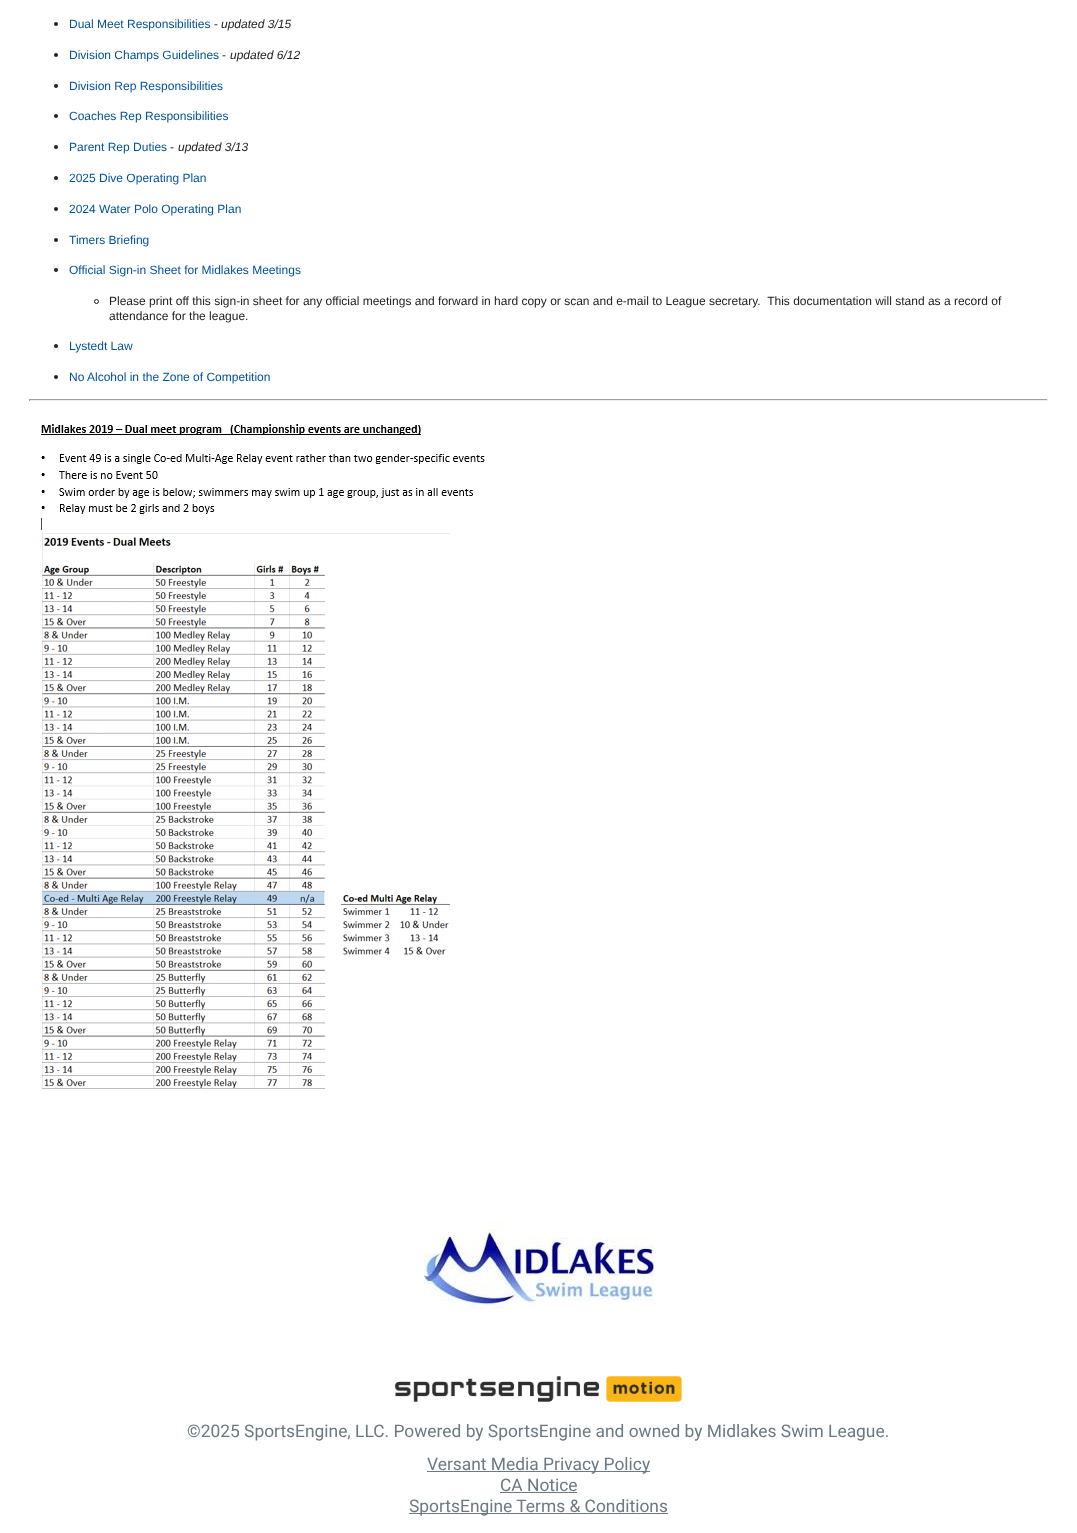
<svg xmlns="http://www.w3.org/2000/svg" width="1077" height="1533">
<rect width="100%" height="100%" fill="#fff"/>
<circle cx="56" cy="24" r="2" fill="#212121"/>
<text x="69" y="28" style="font-family:Liberation Sans;font-size:12px;fill:#01519b">Dual Meet Responsibilities</text>
<text x="214" y="28" style="font-family:Liberation Sans;font-size:12px;fill:#212121">-</text>
<text x="221" y="28" style="font-family:Liberation Sans;font-size:12px;font-style:italic;fill:#212121">updated 3/15</text>
<circle cx="56" cy="55" r="2" fill="#212121"/>
<text x="69" y="59" style="font-family:Liberation Sans;font-size:12px;fill:#01519b">Division Champs Guidelines</text>
<text x="222" y="59" style="font-family:Liberation Sans;font-size:12px;fill:#212121">-</text>
<text x="230" y="59" style="font-family:Liberation Sans;font-size:12px;font-style:italic;fill:#212121">updated 6/12</text>
<circle cx="56" cy="86" r="2" fill="#212121"/>
<text x="69" y="90" style="font-family:Liberation Sans;font-size:12px;fill:#01519b">Division Rep Responsibilities</text>
<circle cx="56" cy="116" r="2" fill="#212121"/>
<text x="69" y="120" style="font-family:Liberation Sans;font-size:12px;fill:#01519b">Coaches Rep Responsibilities</text>
<circle cx="56" cy="147" r="2" fill="#212121"/>
<text x="69" y="151" style="font-family:Liberation Sans;font-size:12px;fill:#01519b">Parent Rep Duties</text>
<text x="170" y="151" style="font-family:Liberation Sans;font-size:12px;fill:#212121">-</text>
<text x="178" y="151" style="font-family:Liberation Sans;font-size:12px;font-style:italic;fill:#212121">updated 3/13</text>
<circle cx="56" cy="178" r="2" fill="#212121"/>
<text x="69" y="182" style="font-family:Liberation Sans;font-size:12px;fill:#01519b">2025 Dive Operating Plan</text>
<circle cx="56" cy="209" r="2" fill="#212121"/>
<text x="69" y="213" style="font-family:Liberation Sans;font-size:12px;fill:#01519b">2024 Water Polo Operating Plan</text>
<circle cx="56" cy="240" r="2" fill="#212121"/>
<text x="69" y="244" style="font-family:Liberation Sans;font-size:12px;fill:#01519b">Timers Briefing</text>
<circle cx="56" cy="270" r="2" fill="#212121"/>
<text x="69" y="274" style="font-family:Liberation Sans;font-size:12px;fill:#01519b">Official Sign-in Sheet for Midlakes Meetings</text>
<circle cx="96.5" cy="301.5" r="2" fill="none" stroke="#212121"/>
<text x="109" y="305" style="font-family:Liberation Sans;font-size:12px;fill:#212121" xml:space="preserve">Please print off this sign-in sheet for any official meetings and forward in hard copy or scan and e-mail to League secretary.  This documentation will stand as a record of</text>
<text x="109" y="320" style="font-family:Liberation Sans;font-size:12px;fill:#212121">attendance for the league.</text>
<circle cx="56" cy="346" r="2" fill="#212121"/>
<text x="69" y="350" style="font-family:Liberation Sans;font-size:12px;fill:#01519b">Lystedt Law</text>
<circle cx="56" cy="377" r="2" fill="#212121"/>
<text x="69" y="381" style="font-family:Liberation Sans;font-size:12px;fill:#01519b">No Alcohol in the Zone of Competition</text>
<rect x="29" y="399" width="1019" height="1" fill="#9f9f9f"/>
<rect x="1047" y="399" width="1" height="2" fill="#eee"/>
<rect x="29" y="400" width="1019" height="1" fill="#eee"/>
<rect x="29" y="399" width="1" height="2" fill="#9f9f9f"/>
<image x="41" y="424" width="444" height="665" href="media/1.png"/>
<image x="424" y="1221" width="230" height="88" href="media/2.png"/>
<image x="394" y="1376" width="288" height="26" href="media/3.png"/>
<text x="187" y="1437" style="font-family:Roboto;font-size:17.4px;fill:#6b7982">©2025 SportsEngine, LLC. Powered by SportsEngine and owned by Midlakes Swim League.</text>
<rect x="427" y="1471" width="223" height="1" fill="#6b7982"/>
<text x="427" y="1470" style="font-family:Roboto;font-size:17.4px;fill:#6b7982">Versant Media Privacy Policy</text>
<text x="500" y="1491" style="font-family:Roboto;font-size:17.4px;fill:#6b7982">CA Notice</text>
<rect x="500" y="1492" width="77" height="1" fill="#6b7982"/>
<rect x="409" y="1513" width="259" height="1" fill="#6b7982"/>
<text x="409" y="1512" style="font-family:Roboto;font-size:17.4px;fill:#6b7982">SportsEngine Terms &amp; Conditions</text>
</svg>
